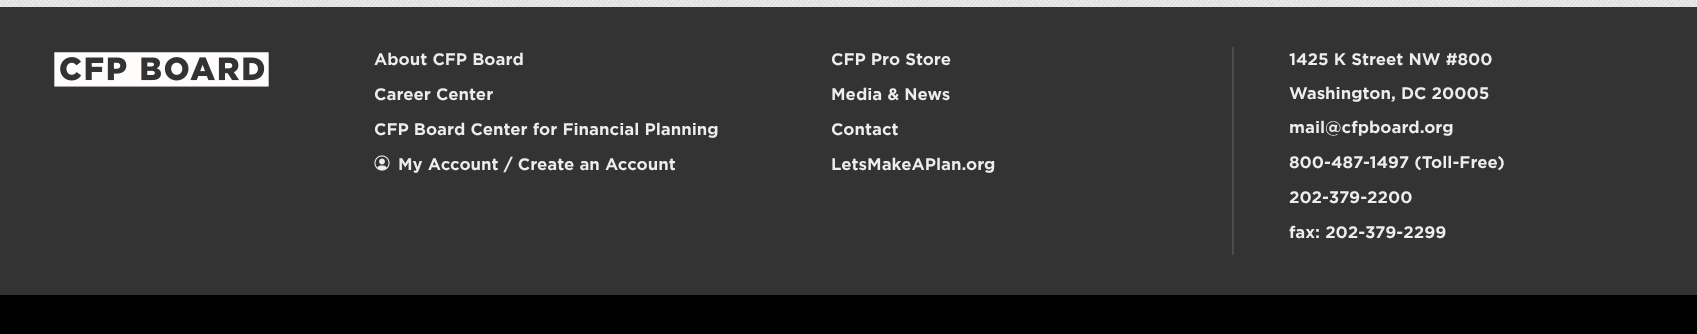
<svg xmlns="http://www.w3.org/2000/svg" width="1697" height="334">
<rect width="100%" height="100%" fill="#333"/>
<image x="0" y="0" width="1697" height="7" href="media/1.png"/>
<image x="54" y="52" width="215" height="35" href="media/2.png"/>
<text x="374" y="65" style="font-family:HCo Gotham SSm;font-size:16px;font-weight:bold;fill:#ededed">About CFP Board</text>
<text x="374" y="100" style="font-family:HCo Gotham SSm;font-size:16px;font-weight:bold;fill:#ededed">Career Center</text>
<text x="374" y="135" style="font-family:HCo Gotham SSm;font-size:16px;font-weight:bold;fill:#ededed">CFP Board Center for Financial Planning</text>
<image x="374" y="155" width="16" height="16" href="media/3.png"/>
<text x="398" y="170" style="font-family:HCo Gotham SSm;font-size:16px;font-weight:bold;fill:#ededed">My Account / Create an Account</text>
<text x="831" y="65" style="font-family:HCo Gotham SSm;font-size:16px;font-weight:bold;fill:#ededed">CFP Pro Store</text>
<text x="831" y="100" style="font-family:HCo Gotham SSm;font-size:16px;font-weight:bold;fill:#ededed">Media &amp; News</text>
<text x="831" y="135" style="font-family:HCo Gotham SSm;font-size:16px;font-weight:bold;fill:#ededed">Contact</text>
<text x="831" y="170" style="font-family:HCo Gotham SSm;font-size:16px;font-weight:bold;fill:#ededed">LetsMakeAPlan.org</text>
<rect x="1232" y="47" width="2" height="208" fill="#4b4b4b"/>
<text x="1289" y="65" style="font-family:HCo Gotham SSm;font-size:16px;font-weight:bold;fill:#ededed">1425 K Street NW #800</text>
<text x="1289" y="99" style="font-family:HCo Gotham SSm;font-size:16px;font-weight:bold;fill:#ededed">Washington, DC 20005</text>
<text x="1289" y="133" style="font-family:HCo Gotham SSm;font-size:16px;font-weight:bold;fill:#ededed">mail@cfpboard.org</text>
<text x="1289" y="168" style="font-family:HCo Gotham SSm;font-size:16px;font-weight:bold;fill:#ededed">800-487-1497 (Toll-Free)</text>
<text x="1289" y="203" style="font-family:HCo Gotham SSm;font-size:16px;font-weight:bold;fill:#ededed">202-379-2200</text>
<text x="1289" y="238" style="font-family:HCo Gotham SSm;font-size:16px;font-weight:bold;fill:#ededed">fax: 202-379-2299</text>
<rect y="295" width="1697" height="39" fill="#000"/>
</svg>
